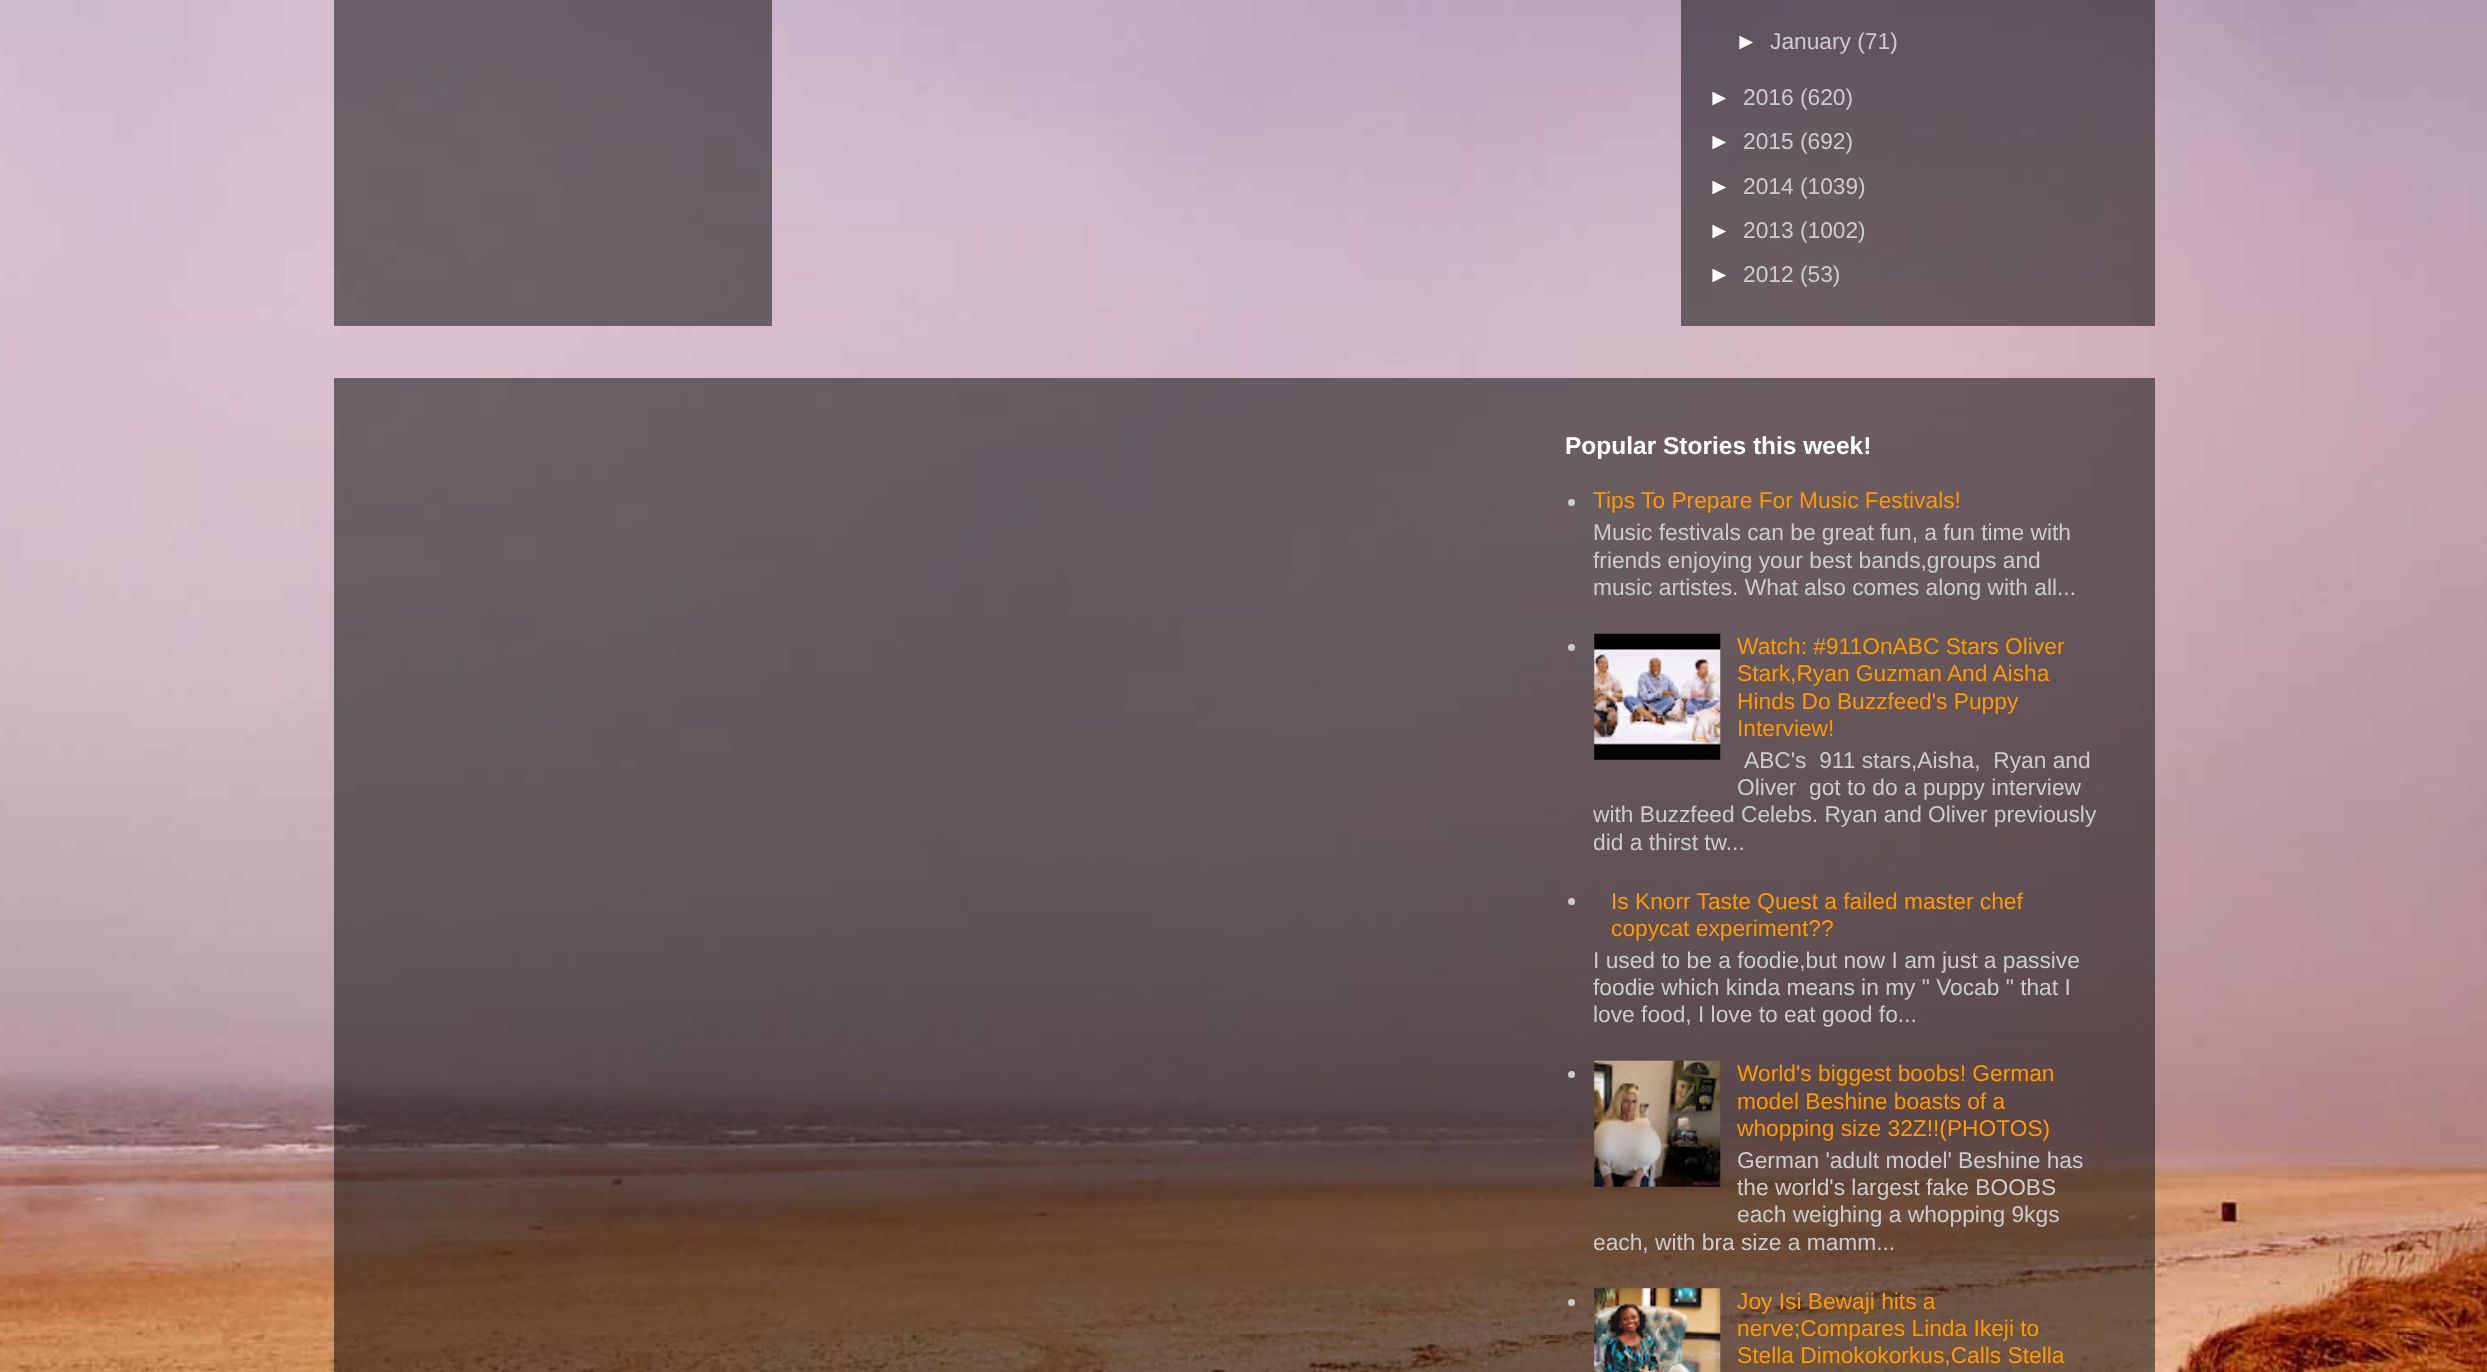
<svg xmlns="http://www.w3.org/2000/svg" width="2487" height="1372">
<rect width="100%" height="100%" fill="#fff"/>
<image x="0" y="0" width="2487" height="1372" href="media/1.png"/>
<rect x="334" width="438" height="326" fill="#00000080"/>
<rect x="1681" width="474" height="326" fill="#00000080"/>
<text x="1735" y="49" style="font-family:Liberation Sans;font-size:22.75px;fill:#fff">►</text>
<text x="1770" y="49" style="font-family:Liberation Sans;font-size:22.75px;fill:#ccc">January (71)</text>
<text x="1708" y="105" style="font-family:Liberation Sans;font-size:22.75px;fill:#fff">►</text>
<text x="1743" y="105" style="font-family:Liberation Sans;font-size:22.75px;fill:#ccc">2016 (620)</text>
<text x="1708" y="149" style="font-family:Liberation Sans;font-size:22.75px;fill:#fff">►</text>
<text x="1743" y="149" style="font-family:Liberation Sans;font-size:22.75px;fill:#ccc">2015 (692)</text>
<text x="1708" y="194" style="font-family:Liberation Sans;font-size:22.75px;fill:#fff">►</text>
<text x="1743" y="194" style="font-family:Liberation Sans;font-size:22.75px;fill:#ccc">2014 (1039)</text>
<text x="1708" y="238" style="font-family:Liberation Sans;font-size:22.75px;fill:#fff">►</text>
<text x="1743" y="238" style="font-family:Liberation Sans;font-size:22.75px;fill:#ccc">2013 (1002)</text>
<text x="1708" y="282" style="font-family:Liberation Sans;font-size:22.75px;fill:#fff">►</text>
<text x="1743" y="282" style="font-family:Liberation Sans;font-size:22.75px;fill:#ccc">2012 (53)</text>
<rect x="334" y="378" width="1821" height="994" fill="#00000080"/>
<text x="1565" y="454" style="font-family:Liberation Sans;font-size:24.5px;font-weight:bold;fill:#fff">Popular Stories this week!</text>
<circle cx="1571.5" cy="502.5" r="3.5" fill="#ccc"/>
<text x="1593" y="508" style="font-family:Liberation Sans;font-size:22.75px;fill:#f90">Tips To Prepare For Music Festivals!</text>
<text x="1593" y="540" style="font-family:Liberation Sans;font-size:22.75px;fill:#ccc">Music festivals can be great fun, a fun time with</text>
<text x="1593" y="568" style="font-family:Liberation Sans;font-size:22.75px;fill:#ccc">friends enjoying your best bands,groups and</text>
<text x="1593" y="595" style="font-family:Liberation Sans;font-size:22.75px;fill:#ccc">music artistes. What also comes along with all...</text>
<circle cx="1571.5" cy="647.5" r="3.5" fill="#ccc"/>
<image x="1594" y="633" width="127" height="127" href="media/2.png"/>
<text x="1737" y="654" style="font-family:Liberation Sans;font-size:22.75px;fill:#f90">Watch: #911OnABC Stars Oliver</text>
<text x="1737" y="681" style="font-family:Liberation Sans;font-size:22.75px;fill:#f90">Stark,Ryan Guzman And Aisha</text>
<text x="1737" y="709" style="font-family:Liberation Sans;font-size:22.75px;fill:#f90">Hinds Do Buzzfeed's Puppy</text>
<text x="1737" y="736" style="font-family:Liberation Sans;font-size:22.75px;fill:#f90">Interview!</text>
<text x="1744" y="768" style="font-family:Liberation Sans;font-size:22.75px;fill:#ccc" xml:space="preserve">ABC's  911 stars,Aisha,  Ryan and</text>
<text x="1737" y="795" style="font-family:Liberation Sans;font-size:22.75px;fill:#ccc" xml:space="preserve">Oliver  got to do a puppy interview</text>
<text x="1593" y="822" style="font-family:Liberation Sans;font-size:22.75px;fill:#ccc">with Buzzfeed Celebs. Ryan and Oliver previously</text>
<text x="1593" y="850" style="font-family:Liberation Sans;font-size:22.75px;fill:#ccc">did a thirst tw...</text>
<circle cx="1571.5" cy="901.5" r="3.5" fill="#ccc"/>
<text x="1611" y="909" style="font-family:Liberation Sans;font-size:22.75px;fill:#f90">Is Knorr Taste Quest a failed master chef</text>
<text x="1611" y="936" style="font-family:Liberation Sans;font-size:22.75px;fill:#f90">copycat experiment??</text>
<text x="1593" y="968" style="font-family:Liberation Sans;font-size:22.75px;fill:#ccc">I used to be a foodie,but now I am just a passive</text>
<text x="1593" y="995" style="font-family:Liberation Sans;font-size:22.75px;fill:#ccc">foodie which kinda means in my " Vocab " that I</text>
<text x="1593" y="1022" style="font-family:Liberation Sans;font-size:22.75px;fill:#ccc">love food, I love to eat good fo...</text>
<circle cx="1571.5" cy="1074.5" r="3.5" fill="#ccc"/>
<image x="1594" y="1060" width="127" height="127" href="media/3.png"/>
<text x="1737" y="1081" style="font-family:Liberation Sans;font-size:22.75px;fill:#f90">World's biggest boobs! German</text>
<text x="1737" y="1109" style="font-family:Liberation Sans;font-size:22.75px;fill:#f90">model Beshine boasts of a</text>
<text x="1737" y="1136" style="font-family:Liberation Sans;font-size:22.75px;fill:#f90">whopping size 32Z!!(PHOTOS)</text>
<text x="1737" y="1168" style="font-family:Liberation Sans;font-size:22.75px;fill:#ccc">German 'adult model' Beshine has</text>
<text x="1737" y="1195" style="font-family:Liberation Sans;font-size:22.75px;fill:#ccc">the world's largest fake BOOBS</text>
<text x="1737" y="1222" style="font-family:Liberation Sans;font-size:22.75px;fill:#ccc">each weighing a whopping 9kgs</text>
<text x="1593" y="1250" style="font-family:Liberation Sans;font-size:22.75px;fill:#ccc">each, with bra size a mamm...</text>
<circle cx="1571.5" cy="1302.5" r="3.5" fill="#ccc"/>
<image x="1594" y="1288" width="127" height="84" href="media/4.png"/>
<text x="1737" y="1309" style="font-family:Liberation Sans;font-size:22.75px;fill:#f90">Joy Isi Bewaji hits a</text>
<text x="1737" y="1336" style="font-family:Liberation Sans;font-size:22.75px;fill:#f90">nerve;Compares Linda Ikeji to</text>
<text x="1737" y="1363" style="font-family:Liberation Sans;font-size:22.75px;fill:#f90">Stella Dimokokorkus,Calls Stella</text>
</svg>
